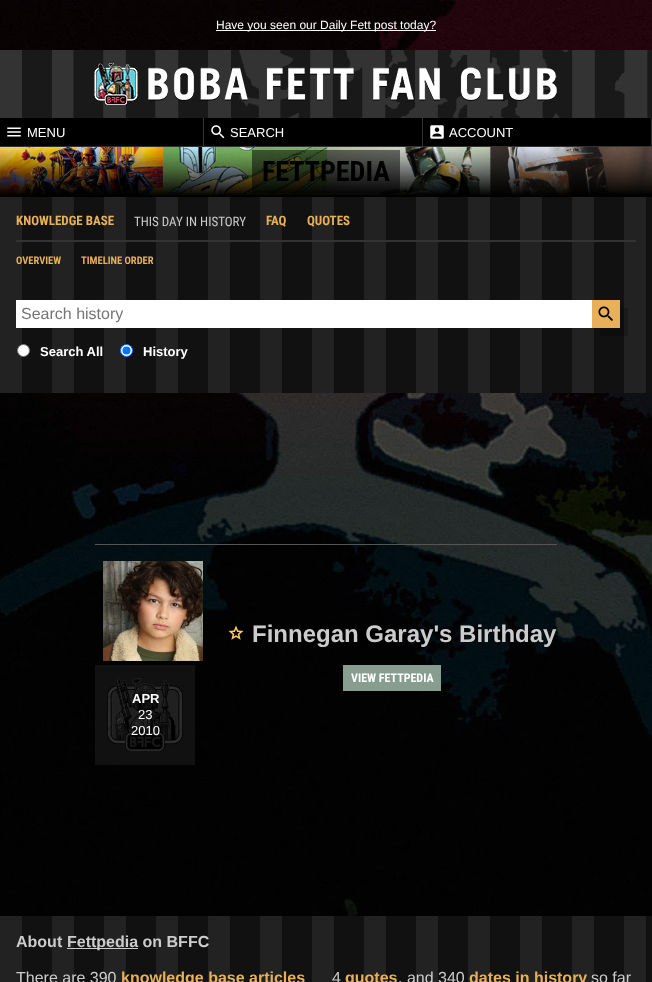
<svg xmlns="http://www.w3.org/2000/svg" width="652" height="982">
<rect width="100%" height="100%" fill="#fff"/>
<image x="0" y="0" width="652" height="916" href="media/1.png"/>
<rect x="216" y="30" width="220" height="1" fill="#fff"/>
<text x="216" y="29" style="font-family:Liberation Sans;font-size:12px;fill:#fff">Have you seen our Daily Fett post today?</text>
<rect y="50" width="652" height="68" fill="#333"/>
<image x="22" y="50" width="630" height="68" href="media/2.png"/>
<image x="94" y="63" width="463" height="42" href="media/3.png"/>
<rect y="118" width="651" height="28" fill="#000"/>
<rect x="203" y="118" width="1" height="29" fill="#333"/>
<rect y="146" width="204" height="1" fill="#333"/>
<image x="7" y="127" width="14" height="10" href="media/4.png"/>
<text x="27" y="137" style="font-family:Liberation Sans;font-size:13px;fill:#fff">MENU</text>
<rect x="422" y="118" width="1" height="29" fill="#333"/>
<rect x="204" y="146" width="219" height="1" fill="#333"/>
<image x="211" y="125" width="14" height="14" href="media/5.png"/>
<text x="230" y="137" style="font-family:Liberation Sans;font-size:13px;fill:#fff">SEARCH</text>
<rect x="651" y="118" width="1" height="29" fill="#333"/>
<rect x="423" y="146" width="229" height="1" fill="#333"/>
<image x="430" y="125" width="14" height="14" href="media/6.png"/>
<text x="449" y="137" style="font-family:Liberation Sans;font-size:13px;fill:#fff">ACCOUNT</text>
<image x="0" y="147" width="652" height="50" href="media/7.png"/>
<rect x="252" y="150" width="148" height="43" fill="#00000080"/>
<text x="262" y="181" style="font-family:Roboto Condensed;font-size:28px;font-weight:bold;fill:#000">FETTPEDIA</text>
<rect y="197" width="652" height="196" fill="#222"/>
<image x="22" y="197" width="630" height="196" href="media/8.png"/>
<rect x="16" y="240" width="620" height="2" fill="#333"/>
<text x="16" y="225" style="font-family:Roboto Condensed;font-size:13px;font-weight:bold;fill:#e8b058">KNOWLEDGE BASE</text>
<text x="134" y="226" style="font-family:Roboto Condensed;font-size:13px;fill:#ccc">THIS DAY IN HISTORY</text>
<text x="266" y="225" style="font-family:Roboto Condensed;font-size:13px;font-weight:bold;fill:#e8b058">FAQ</text>
<text x="307" y="225" style="font-family:Roboto Condensed;font-size:13px;font-weight:bold;fill:#e8b058">QUOTES</text>
<text x="16" y="264" style="font-family:Roboto Condensed;font-size:10.5px;font-weight:bold;fill:#e8b058">OVERVIEW</text>
<text x="81" y="264" style="font-family:Roboto Condensed;font-size:10.5px;font-weight:bold;fill:#e8b058">TIMELINE ORDER</text>
<rect x="16" y="300" width="576" height="28" fill="#fff"/>
<text x="21" y="319" style="font-family:Liberation Sans;font-size:16px;fill:#757575">Search history</text>
<path d="M600 328v8h28v-28h-8v20z" fill="#00000033"/>
<rect x="592" y="300" width="28" height="28" fill="#e8b058"/>
<image x="598" y="306" width="15" height="15" href="media/9.png"/>
<circle cx="23.5" cy="350.5" r="6" fill="#fff" stroke="#767676"/>
<text x="40" y="356" style="font-family:Liberation Sans;font-size:13px;font-weight:bold;fill:#fff">Search All</text>
<circle cx="126.5" cy="350.5" r="6" fill="#fff" stroke="#0075ff"/>
<circle cx="126.5" cy="350.5" r="4" fill="#0075ff"/>
<text x="143" y="356" style="font-family:Liberation Sans;font-size:13px;font-weight:bold;fill:#fff">History</text>
<rect x="95" y="544" width="462" height="1" fill="#555"/>
<image x="228" y="625" width="16" height="15" href="media/10.png"/>
<text x="252" y="642" style="font-family:Liberation Sans;font-size:24px;font-weight:bold;fill:#ccc">Finnegan Garay's Birthday</text>
<rect x="343" y="665" width="98" height="26" fill="#869d8f"/>
<text x="351" y="682" style="font-family:Roboto Condensed;font-size:12px;font-weight:bold;fill:#fff">VIEW FETTPEDIA</text>
<image x="103" y="561" width="100" height="100" href="media/11.png"/>
<image x="95" y="665" width="100" height="100" href="media/12.png"/>
<text x="132" y="703" style="font-family:Liberation Sans;font-size:13px;font-weight:bold;fill:#fff">APR</text>
<text x="138" y="719" style="font-family:Liberation Sans;font-size:13px;fill:#fff">23</text>
<text x="131" y="735" style="font-family:Liberation Sans;font-size:13px;fill:#fff">2010</text>
<rect y="916" width="652" height="66" fill="#222"/>
<image x="22" y="916" width="630" height="66" href="media/13.png"/>
<text x="16" y="947" style="font-family:Liberation Sans;font-size:16px;font-weight:bold;fill:#ccc">About</text>
<rect x="67" y="948" width="71" height="1" fill="#ccc"/>
<text x="67" y="947" style="font-family:Liberation Sans;font-size:16px;font-weight:bold;fill:#ccc">Fettpedia on BFFC</text>
<text x="16" y="983" style="font-family:Liberation Sans;font-size:16px;fill:#ccc">There are 390</text>
<text x="121" y="983" style="font-family:Liberation Sans;font-size:16px;font-weight:bold;fill:#e8b058">knowledge base articles</text>
<text x="332" y="983" style="font-family:Liberation Sans;font-size:16px;fill:#ccc">4</text>
<text x="345" y="983" style="font-family:Liberation Sans;font-size:16px;font-weight:bold;fill:#e8b058">quotes</text>
<text x="398" y="983" style="font-family:Liberation Sans;font-size:16px;fill:#ccc">, and 340</text>
<text x="469" y="983" style="font-family:Liberation Sans;font-size:16px;font-weight:bold;fill:#e8b058">dates in history</text>
<text x="591" y="983" style="font-family:Liberation Sans;font-size:16px;fill:#ccc">so far</text>
</svg>
